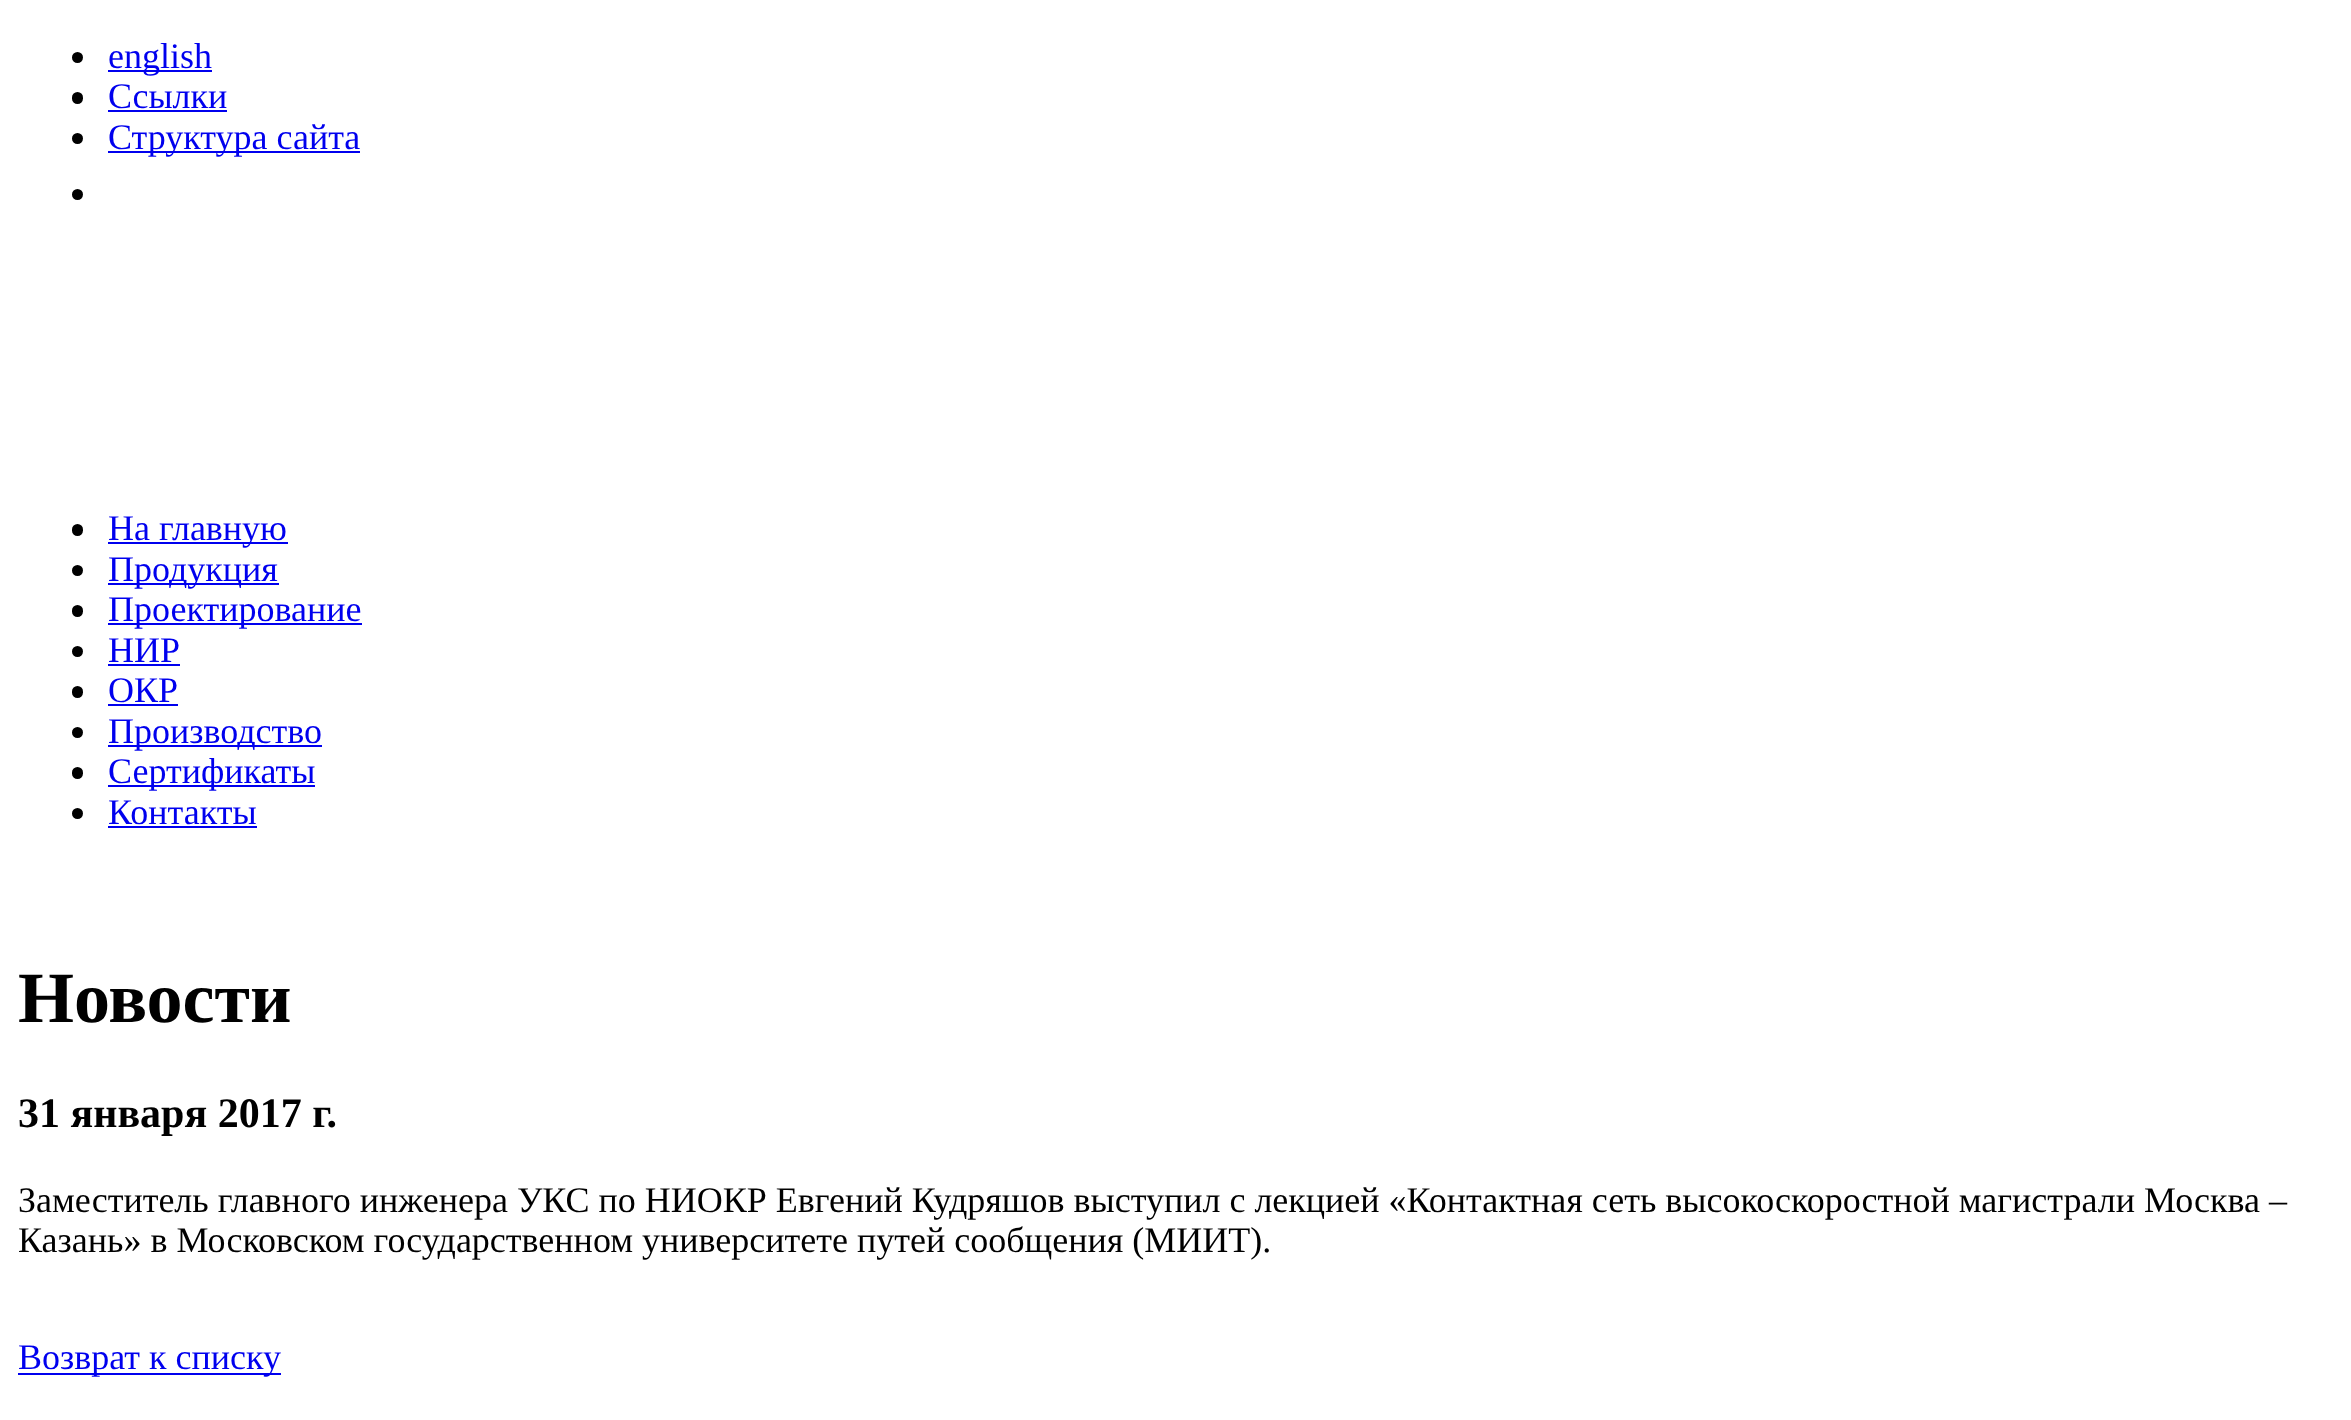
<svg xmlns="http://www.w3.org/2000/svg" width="2351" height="1420">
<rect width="100%" height="100%" fill="#fff"/>
<circle cx="77.5" cy="57.5" r="5.5" fill="#000"/>
<rect x="108" y="70" width="104" height="2" fill="#00e"/>
<text x="108" y="68" style="font-family:Liberation Serif;font-size:36px;fill:#00e">english</text>
<rect x="72" y="92" width="11" height="12" rx="5.5" fill="#000"/>
<text x="108" y="108" style="font-family:Liberation Serif;font-size:36px;fill:#00e">Ссылки</text>
<rect x="108" y="110" width="119" height="2" fill="#00e"/>
<circle cx="77.5" cy="138.5" r="5.5" fill="#000"/>
<rect x="108" y="151" width="252" height="2" fill="#00e"/>
<text x="108" y="149" style="font-family:Liberation Serif;font-size:36px;fill:#00e">Структура сайта</text>
<circle cx="77.5" cy="194.5" r="5.5" fill="#000"/>
<rect x="72" y="524" width="11" height="12" rx="5.5" fill="#000"/>
<rect x="108" y="542" width="180" height="2" fill="#00e"/>
<text x="108" y="540" style="font-family:Liberation Serif;font-size:36px;fill:#00e">На главную</text>
<circle cx="77.5" cy="570.5" r="5.5" fill="#000"/>
<rect x="108" y="583" width="171" height="2" fill="#00e"/>
<text x="108" y="581" style="font-family:Liberation Serif;font-size:36px;fill:#00e">Продукция</text>
<rect x="72" y="605" width="11" height="12" rx="5.5" fill="#000"/>
<rect x="108" y="623" width="254" height="2" fill="#00e"/>
<text x="108" y="621" style="font-family:Liberation Serif;font-size:36px;fill:#00e">Проектирование</text>
<circle cx="77.5" cy="651.5" r="5.5" fill="#000"/>
<text x="108" y="662" style="font-family:Liberation Serif;font-size:36px;fill:#00e">НИР</text>
<rect x="108" y="664" width="72" height="2" fill="#00e"/>
<rect x="72" y="686" width="11" height="12" rx="5.5" fill="#000"/>
<text x="108" y="702" style="font-family:Liberation Serif;font-size:36px;fill:#00e">ОКР</text>
<rect x="108" y="704" width="70" height="2" fill="#00e"/>
<circle cx="77.5" cy="732.5" r="5.5" fill="#000"/>
<rect x="108" y="745" width="214" height="2" fill="#00e"/>
<text x="108" y="743" style="font-family:Liberation Serif;font-size:36px;fill:#00e">Производство</text>
<rect x="72" y="767" width="11" height="12" rx="5.5" fill="#000"/>
<rect x="108" y="785" width="207" height="2" fill="#00e"/>
<text x="108" y="783" style="font-family:Liberation Serif;font-size:36px;fill:#00e">Сертификаты</text>
<circle cx="77.5" cy="813.5" r="5.5" fill="#000"/>
<text x="108" y="824" style="font-family:Liberation Serif;font-size:36px;fill:#00e">Контакты</text>
<rect x="108" y="826" width="149" height="2" fill="#00e"/>
<text x="18" y="1022" style="font-family:Liberation Serif;font-size:72px;font-weight:bold;fill:#000">Новости</text>
<text x="18" y="1127" style="font-family:Liberation Serif;font-size:42px;font-weight:bold;fill:#000">31 января 2017 г.</text>
<text x="18" y="1212" style="font-family:Liberation Serif;font-size:36px;fill:#000">Заместитель главного инженера УКС по НИОКР Евгений Кудряшов выступил с лекцией «Контактная сеть высокоскоростной магистрали Москва –</text>
<text x="18" y="1252" style="font-family:Liberation Serif;font-size:36px;fill:#000">Казань» в Московском государственном университете путей сообщения (МИИТ).</text>
<rect x="18" y="1373" width="263" height="2" fill="#00e"/>
<text x="18" y="1369" style="font-family:Liberation Serif;font-size:36px;fill:#00e">Возврат к списку</text>
</svg>
